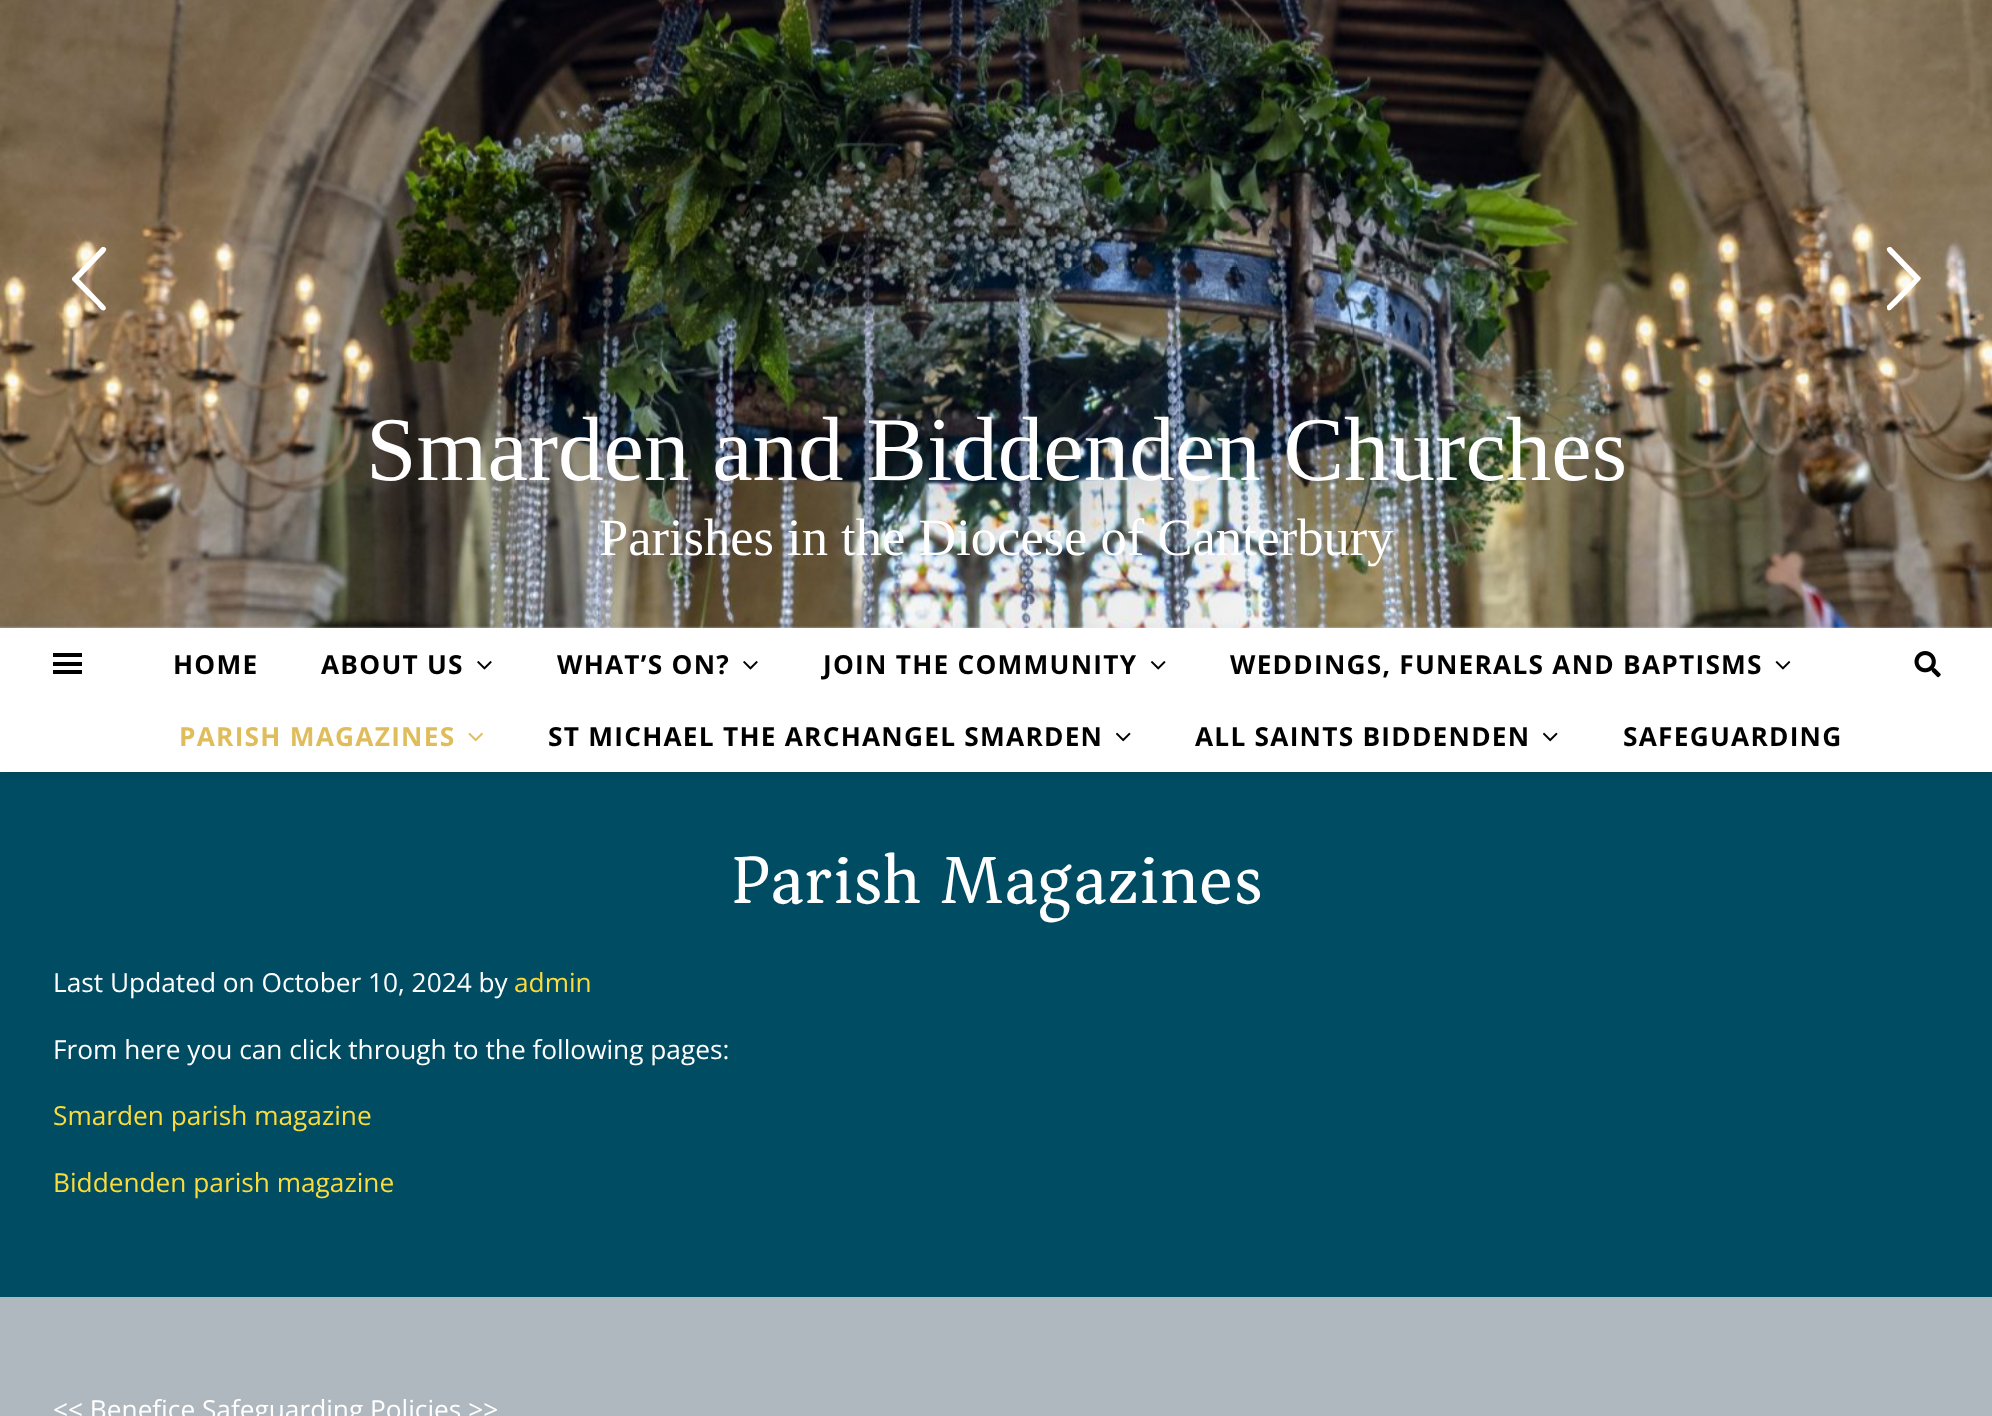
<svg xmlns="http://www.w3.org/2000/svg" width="1992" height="1416">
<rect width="100%" height="100%" fill="#fff"/>
<image x="0" y="0" width="1992" height="628" href="media/1.png"/>
<path d="M105 306l1 2c-2 7-9-3-9-3l-25-25v-2l30-31h2c6 2-2 8-3 9l-22 23z" fill="#fff"/>
<path d="M1887 306l27-27l-22-23c-1-1-9-7-3-9h2l30 31l-1 2l-24 25c-1 0-8 10-9 3z" fill="#fff"/>
<text x="366" y="480" style="font-family:Liberation Serif;font-size:91px;fill:#fff">Smarden and Biddenden Churches</text>
<text x="599" y="555" style="font-family:Liberation Serif;font-size:52.5px;fill:#fff">Parishes in the Diocese of Canterbury</text>
<rect y="772" width="1992" height="525" fill="#004c63"/>
<rect y="630" width="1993" height="144" fill="#0000001a" filter="blur(4.5px)"/>
<rect y="628" width="1992" height="144" fill="#fff"/>
<rect x="53" y="653" width="29" height="4" fill="#000"/>
<rect x="53" y="662" width="29" height="4" fill="#000"/>
<rect x="53" y="670" width="29" height="4" fill="#000"/>
<text x="173" y="674" style="font-family:Open Sans;font-size:26.25px;font-weight:bold;letter-spacing:1.25px;fill:#000">HOME</text>
<text x="321" y="674" style="font-family:Open Sans;font-size:26.25px;font-weight:bold;letter-spacing:1.25px;fill:#000">ABOUT US</text>
<image x="477" y="661" width="15" height="9" href="media/2.png"/>
<text x="557" y="674" style="font-family:Open Sans;font-size:26.25px;font-weight:bold;letter-spacing:1.25px;fill:#000">WHAT’S ON?</text>
<image x="743" y="661" width="15" height="9" href="media/2.png"/>
<text x="823" y="674" style="font-family:Open Sans;font-size:26.25px;font-weight:bold;letter-spacing:1.25px;fill:#000">JOIN THE COMMUNITY</text>
<image x="1150" y="661" width="16" height="9" href="media/3.png"/>
<text x="1230" y="674" style="font-family:Open Sans;font-size:26.25px;font-weight:bold;letter-spacing:1.25px;fill:#000">WEDDINGS, FUNERALS AND BAPTISMS</text>
<image x="1775" y="661" width="16" height="9" href="media/4.png"/>
<text x="179" y="746" style="font-family:Open Sans;font-size:26.25px;font-weight:bold;letter-spacing:1.25px;fill:#e0bd5c">PARISH MAGAZINES</text>
<image x="468" y="732" width="15" height="10" href="media/5.png"/>
<text x="548" y="746" style="font-family:Open Sans;font-size:26.25px;font-weight:bold;letter-spacing:1.25px;fill:#000">ST MICHAEL THE ARCHANGEL SMARDEN</text>
<image x="1116" y="732" width="15" height="10" href="media/6.png"/>
<text x="1195" y="746" style="font-family:Open Sans;font-size:26.25px;font-weight:bold;letter-spacing:1.25px;fill:#000">ALL SAINTS BIDDENDEN</text>
<image x="1543" y="732" width="15" height="10" href="media/6.png"/>
<text x="1623" y="746" style="font-family:Open Sans;font-size:26.25px;font-weight:bold;letter-spacing:1.25px;fill:#000">SAFEGUARDING</text>
<image x="1914" y="651" width="27" height="27" href="media/7.png"/>
<text x="731" y="903" style="font-family:Asar;font-size:70px;letter-spacing:0.9px;fill:#fff">Parish Magazines</text>
<text x="53" y="992" style="font-family:Open Sans;font-size:26.25px;fill:#fff">Last Updated on October 10, 2024 by</text>
<text x="514" y="992" style="font-family:Open Sans;font-size:26.25px;fill:#fcdc3a">admin</text>
<text x="53" y="1059" style="font-family:Open Sans;font-size:26.25px;fill:#fff">From here you can click through to the following pages:</text>
<text x="53" y="1125" style="font-family:Open Sans;font-size:26.25px;fill:#fcdc3a">Smarden parish magazine</text>
<text x="53" y="1192" style="font-family:Open Sans;font-size:26.25px;fill:#fcdc3a">Biddenden parish magazine</text>
<rect y="1297" width="1992" height="119" fill="#afb8bf"/>
<text x="53" y="1419" style="font-family:Open Sans;font-size:26.25px;fill:#fff">&lt;&lt; Benefice Safeguarding Policies &gt;&gt;</text>
</svg>
